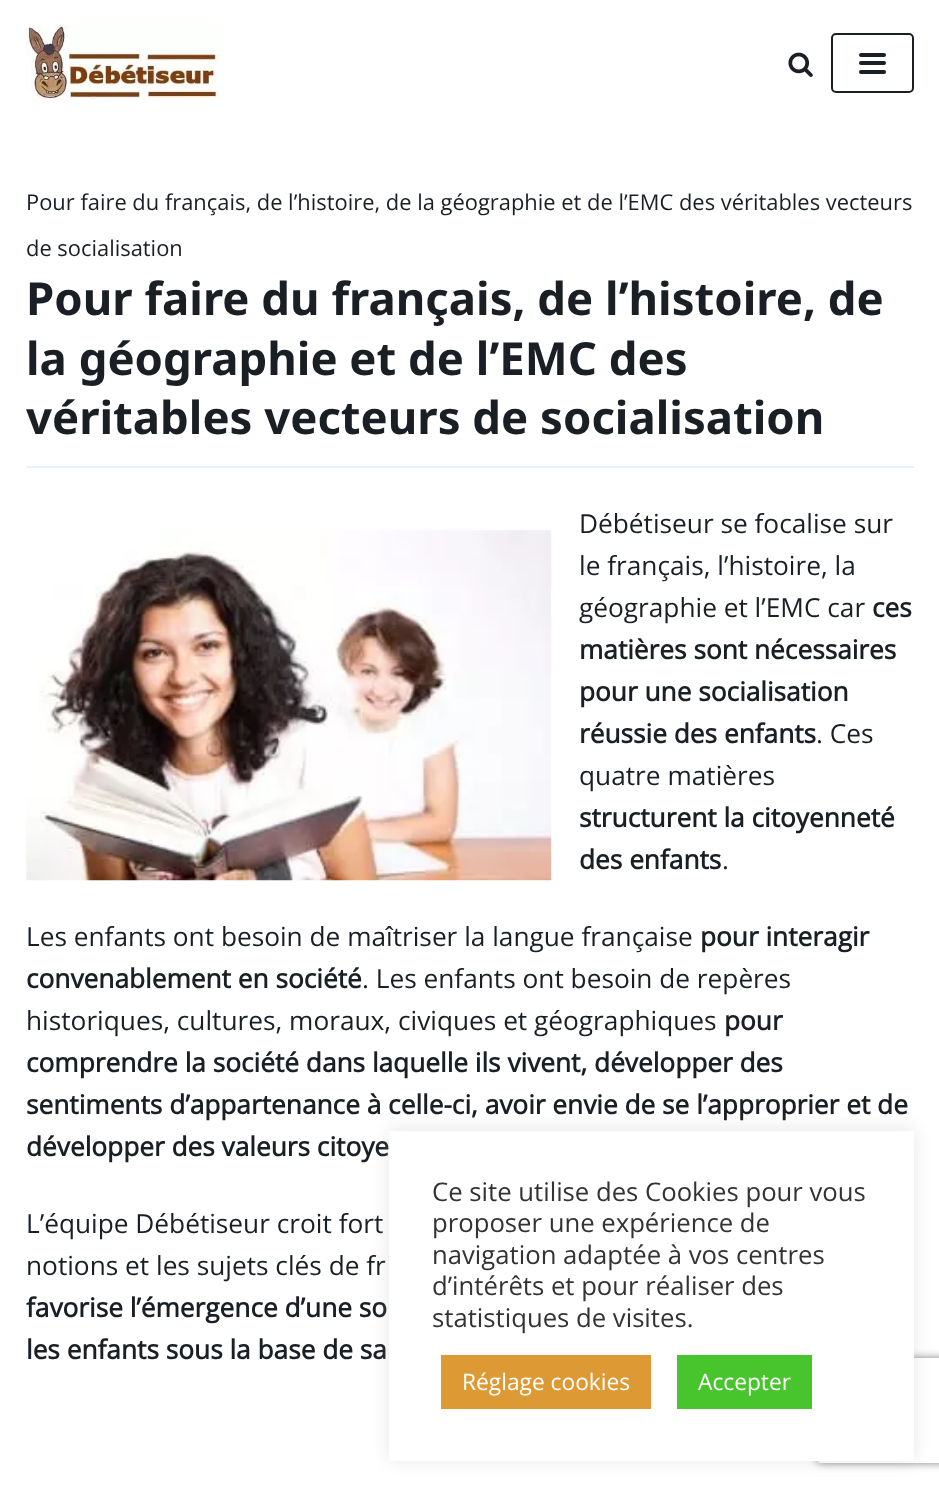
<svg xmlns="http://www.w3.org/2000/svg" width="939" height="1487">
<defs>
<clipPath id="clip1"><path d="M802 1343h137v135h-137zm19 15h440c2 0 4 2 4 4v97c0 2-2 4-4 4h-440c-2 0-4-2-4-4v-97c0-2 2-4 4-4z" clip-rule="evenodd"/></clipPath>
</defs>
<rect width="100%" height="100%" fill="#fff"/>
<image x="26" y="24" width="193" height="76" href="media/1.png"/>
<image x="788" y="52" width="25" height="25" href="media/2.png"/>
<rect x="832" y="34" width="81" height="58" rx="4" fill="none" stroke="#191f24" stroke-width="2"/>
<rect x="859" y="53" width="27" height="4" rx="2" fill="#191f24"/>
<rect x="859" y="61" width="27" height="4" rx="2" fill="#191f24"/>
<rect x="859" y="70" width="27" height="4" rx="2" fill="#191f24"/>
<rect x="26" y="466" width="888" height="2" fill="#e8f2ff"/>
<text x="26" y="210" style="font-family:Open Sans;font-size:21.9px;fill:#191f24">Pour faire du français, de l’histoire, de la géographie et de l’EMC des véritables vecteurs</text>
<text x="26" y="256" style="font-family:Open Sans;font-size:21.9px;fill:#191f24">de socialisation</text>
<text x="26" y="315" style="font-family:Noto Sans;font-size:45.5px;font-weight:bold;fill:#191f24">Pour faire du français, de l’histoire, de</text>
<text x="26" y="375" style="font-family:Noto Sans;font-size:45.5px;font-weight:bold;fill:#191f24">la géographie et de l’EMC des</text>
<text x="26" y="434" style="font-family:Noto Sans;font-size:45.5px;font-weight:bold;fill:#191f24">véritables vecteurs de socialisation</text>
<text x="579" y="533" style="font-family:Open Sans;font-size:26.25px;fill:#191f24">Débétiseur se focalise sur</text>
<image x="26" y="530" width="526" height="351" href="media/3.png"/>
<text x="579" y="575" style="font-family:Open Sans;font-size:26.25px;fill:#191f24">le français, l’histoire, la</text>
<text x="579" y="617" style="font-family:Open Sans;font-size:26.25px;fill:#191f24">géographie et l’EMC car</text>
<text x="872" y="617" style="font-family:Open Sans;font-size:26.25px;font-weight:bold;fill:#191f24">ces</text>
<text x="579" y="659" style="font-family:Open Sans;font-size:26.25px;font-weight:bold;fill:#191f24">matières sont nécessaires</text>
<text x="579" y="701" style="font-family:Open Sans;font-size:26.25px;font-weight:bold;fill:#191f24">pour une socialisation</text>
<text x="579" y="743" style="font-family:Open Sans;font-size:26.25px;font-weight:bold;fill:#191f24">réussie des enfants</text>
<text x="816" y="743" style="font-family:Open Sans;font-size:26.25px;fill:#191f24">. Ces</text>
<text x="579" y="785" style="font-family:Open Sans;font-size:26.25px;fill:#191f24">quatre matières</text>
<text x="579" y="827" style="font-family:Open Sans;font-size:26.25px;font-weight:bold;fill:#191f24">structurent la citoyenneté</text>
<text x="579" y="869" style="font-family:Open Sans;font-size:26.25px;font-weight:bold;fill:#191f24">des enfants</text>
<text x="722" y="869" style="font-family:Open Sans;font-size:26.25px;fill:#191f24">.</text>
<text x="26" y="946" style="font-family:Open Sans;font-size:26.25px;fill:#191f24">Les enfants ont besoin de maîtriser la langue française</text>
<text x="700" y="946" style="font-family:Open Sans;font-size:26.25px;font-weight:bold;fill:#191f24">pour interagir</text>
<text x="26" y="988" style="font-family:Open Sans;font-size:26.25px;font-weight:bold;fill:#191f24">convenablement en société</text>
<text x="362" y="988" style="font-family:Open Sans;font-size:26.25px;fill:#191f24">. Les enfants ont besoin de repères</text>
<text x="26" y="1030" style="font-family:Open Sans;font-size:26.25px;fill:#191f24">historiques, cultures, moraux, civiques et géographiques</text>
<text x="724" y="1030" style="font-family:Open Sans;font-size:26.25px;font-weight:bold;fill:#191f24">pour</text>
<text x="26" y="1072" style="font-family:Open Sans;font-size:26.25px;font-weight:bold;fill:#191f24">comprendre la société dans laquelle ils vivent, développer des</text>
<text x="26" y="1114" style="font-family:Open Sans;font-size:26.25px;font-weight:bold;fill:#191f24">sentiments d’appartenance à celle-ci, avoir envie de se l’approprier et de</text>
<text x="26" y="1156" style="font-family:Open Sans;font-size:26.25px;font-weight:bold;fill:#191f24">développer des valeurs citoye</text>
<text x="26" y="1233" style="font-family:Open Sans;font-size:26.25px;fill:#191f24">L’équipe Débétiseur croit fort</text>
<text x="26" y="1275" style="font-family:Open Sans;font-size:26.25px;fill:#191f24">notions et les sujets clés de fr</text>
<text x="26" y="1317" style="font-family:Open Sans;font-size:26.25px;font-weight:bold;fill:#191f24">favorise l’émergence d’une so</text>
<text x="26" y="1359" style="font-family:Open Sans;font-size:26.25px;font-weight:bold;fill:#191f24">les enfants sous la base de sa</text>
<rect x="389" y="1129" width="525" height="331" fill="#acabab4d" filter="blur(9px)"/>
<g clip-path="url(#clip1)">
<rect x="817" y="1358" width="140" height="105" rx="4" fill="#808080" filter="blur(4.5px)"/>
</g>
<rect x="389" y="1131" width="525" height="330" fill="#fff"/>
<text x="432" y="1201" style="font-family:Open Sans;font-size:25.7px;fill:#333">Ce site utilise des Cookies pour vous</text>
<text x="432" y="1232" style="font-family:Open Sans;font-size:25.7px;fill:#333">proposer une expérience de</text>
<text x="432" y="1264" style="font-family:Open Sans;font-size:25.7px;fill:#333">navigation adaptée à vos centres</text>
<text x="432" y="1295" style="font-family:Open Sans;font-size:25.7px;fill:#333">d’intérêts et pour réaliser des</text>
<text x="432" y="1327" style="font-family:Open Sans;font-size:25.7px;fill:#333">statistiques de visites.</text>
<rect x="441" y="1355" width="210" height="54" fill="#d93"/>
<text x="462" y="1390" style="font-family:Open Sans;font-size:22.75px;fill:#fff">Réglage cookies</text>
<rect x="677" y="1355" width="135" height="54" fill="#48c42d"/>
<text x="698" y="1390" style="font-family:Open Sans;font-size:22.75px;fill:#fff">Accepter</text>
</svg>
